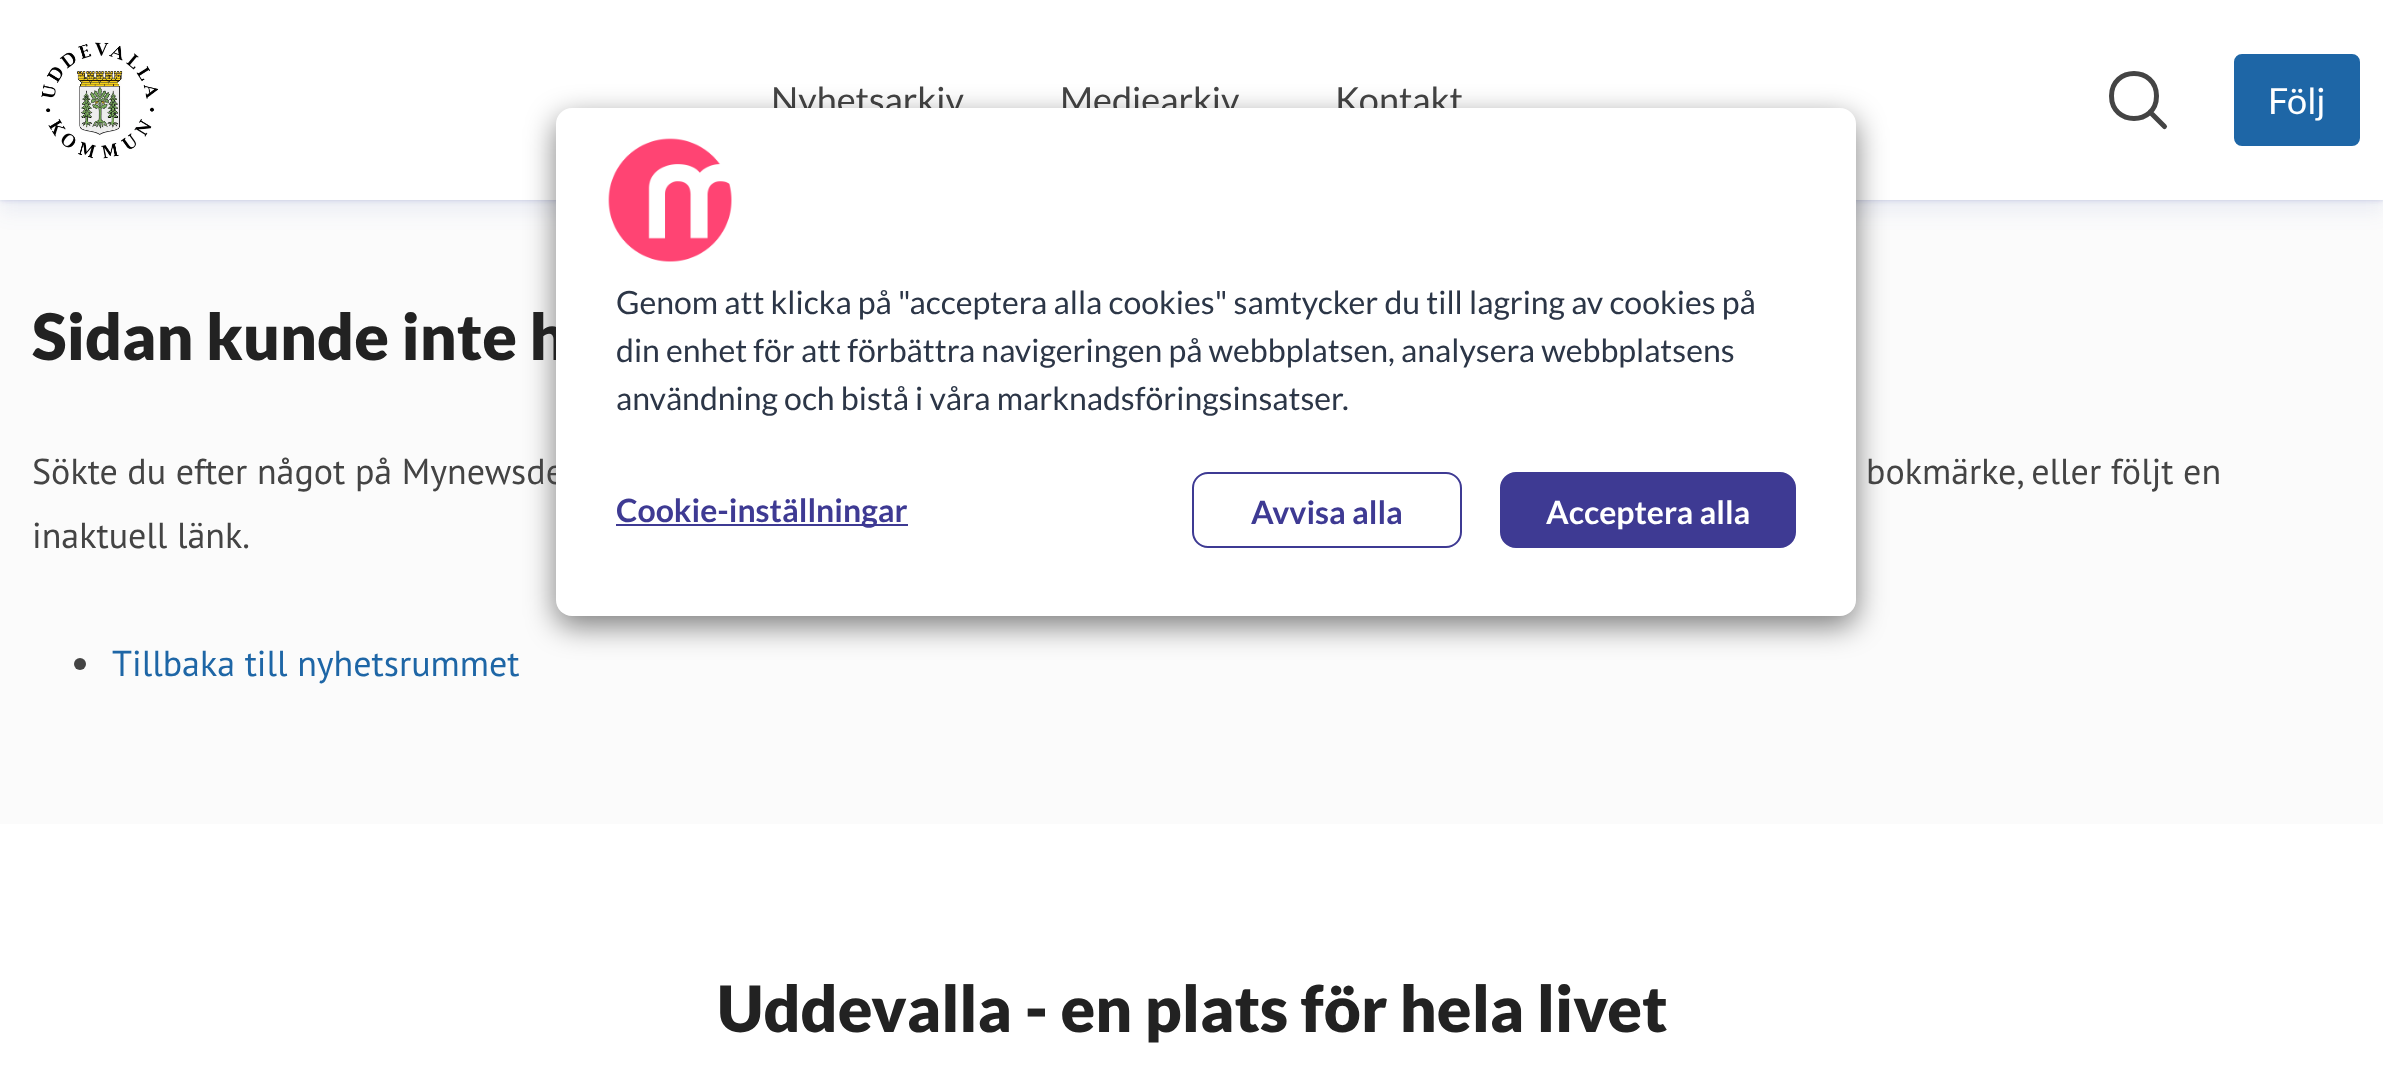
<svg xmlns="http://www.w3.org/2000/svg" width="2383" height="1084">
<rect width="100%" height="100%" fill="#fbfbfb"/>
<rect width="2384" height="200" fill="#3149a424" filter="blur(2px)"/>
<rect width="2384" height="200" fill="#3149a41a" filter="blur(3px)"/>
<rect y="12" width="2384" height="200" fill="#3149a414" filter="blur(10px)"/>
<rect width="2383" height="200" fill="#fff"/>
<image x="41" y="42" width="118" height="117" href="media/1.png"/>
<text x="771" y="113" style="font-family:Lato;font-size:36px;fill:#444">Nyhetsarkiv</text>
<text x="1060" y="113" style="font-family:Lato;font-size:36px;fill:#444">Mediearkiv</text>
<text x="1335" y="113" style="font-family:Lato;font-size:36px;fill:#444">Kontakt</text>
<path d="M2156.5 96c0 30-45 30-45 0c0-30 45-30 45 0zm8 30.5l-14.5-14.5" fill="none" stroke="#444" stroke-width="5" stroke-linecap="round"/>
<rect x="2235" y="55" width="124" height="90" rx="7" fill="#1e66a6" stroke="#1e66a6" stroke-width="2"/>
<text x="2268" y="114" style="font-family:Lato;font-size:36px;fill:#fff">Följ</text>
<rect x="556" y="118" width="1300" height="508" rx="16" fill="#00000080" filter="blur(15px)"/>
<text x="32" y="360" style="font-family:Lato;font-size:64px;font-weight:900;fill:#222">Sidan kunde inte h</text>
<text x="32" y="484" style="font-family:PT Sans;font-size:36px;fill:#444">Sökte du efter något på Mynewsde</text>
<rect x="556" y="108" width="1300" height="508" rx="16" fill="#fff"/>
<image x="608" y="138" width="124" height="124" href="media/2.png"/>
<text x="616" y="314" style="font-family:Lato;font-size:32px;fill:#2c3647">Genom att klicka på "acceptera alla cookies" samtycker du till lagring av cookies på</text>
<text x="616" y="362" style="font-family:Lato;font-size:32px;fill:#2c3647">din enhet för att förbättra navigeringen på webbplatsen, analysera webbplatsens</text>
<text x="616" y="410" style="font-family:Lato;font-size:32px;fill:#2c3647">användning och bistå i våra marknadsföringsinsatser.</text>
<rect x="616" y="524" width="292" height="2" fill="#3e3a93"/>
<text x="616" y="522" style="font-family:Lato;font-size:32px;font-weight:bold;fill:#3e3a93">Cookie-inställningar</text>
<rect x="1193" y="473" width="268" height="74" rx="15" fill="none" stroke="#3e3a93" stroke-width="2"/>
<text x="1251" y="524" style="font-family:Lato;font-size:32px;font-weight:bold;fill:#3e3a93">Avvisa alla</text>
<rect x="1501" y="473" width="294" height="74" rx="15" fill="#3e3a93" stroke="#3e3a93" stroke-width="2"/>
<text x="1546" y="524" style="font-family:Lato;font-size:32px;font-weight:bold;fill:#fff">Acceptera alla</text>
<text x="1866" y="484" style="font-family:PT Sans;font-size:36px;fill:#444">bokmärke, eller följt en</text>
<text x="32" y="548" style="font-family:PT Sans;font-size:36px;fill:#444">inaktuell länk.</text>
<circle cx="80" cy="664" r="6" fill="#444"/>
<text x="112" y="676" style="font-family:PT Sans;font-size:36px;fill:#1e66a6">Tillbaka till nyhetsrummet</text>
<rect y="824" width="2383" height="260" fill="#fff"/>
<text x="717" y="1032" style="font-family:Lato;font-size:64px;font-weight:900;fill:#222">Uddevalla - en plats för hela livet</text>
</svg>
